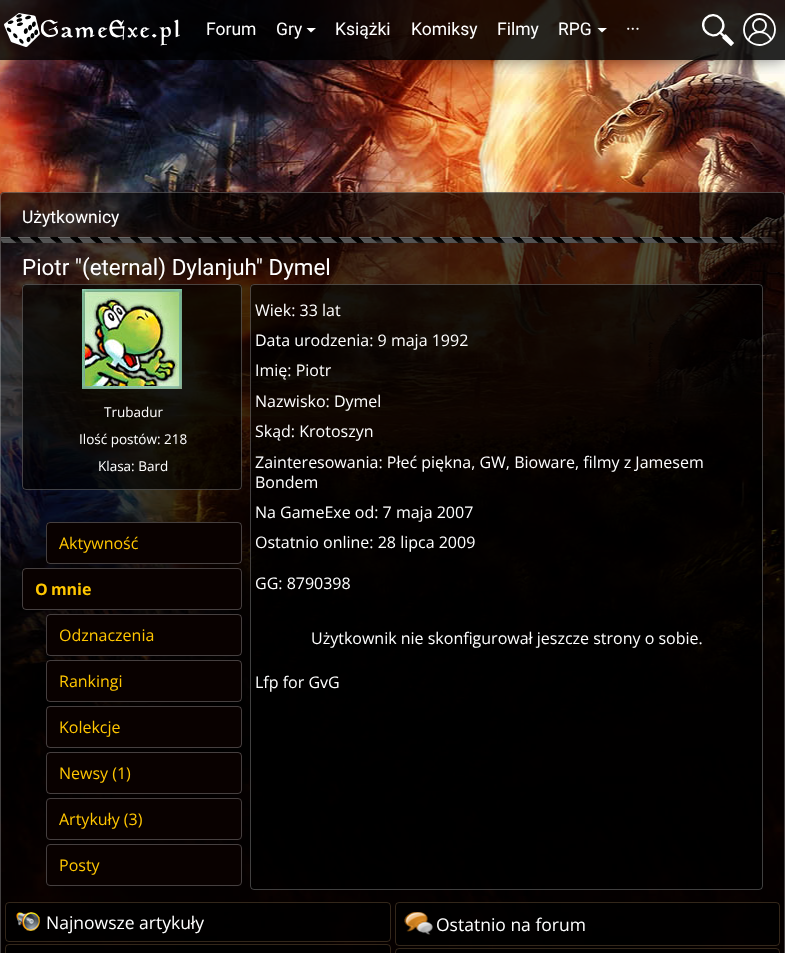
<svg xmlns="http://www.w3.org/2000/svg" width="785" height="953">
<defs>
<clipPath id="clip1"><rect x="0" y="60" width="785" height="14"/></clipPath>
</defs>
<rect width="100%" height="100%" fill="#fff"/>
<image x="0" y="0" width="785" height="953" href="media/1.png"/>
<g clip-path="url(#clip1)">
<rect width="785" height="60" fill="#00000080" filter="blur(8px)"/>
</g>
<rect width="785" height="60" fill="#000000d9"/>
<image x="4" y="13" width="176" height="34" href="media/2.png"/>
<text x="206" y="35" style="font-family:Roboto;font-size:17.5px;fill:#fff">Forum</text>
<text x="276" y="35" style="font-family:Roboto;font-size:17.5px;fill:#fff">Gry</text>
<path d="M306.5 28l4.5 4.5l5-4.5z" fill="#fff"/>
<text x="335" y="35" style="font-family:Roboto;font-size:17.5px;fill:#fff">Książki</text>
<text x="411" y="35" style="font-family:Roboto;font-size:17.5px;fill:#fff">Komiksy</text>
<text x="497" y="35" style="font-family:Roboto;font-size:17.5px;fill:#fff">Filmy</text>
<text x="558" y="35" style="font-family:Roboto;font-size:17.5px;fill:#fff">RPG</text>
<path d="M597.5 28l4.5 4.5l5-4.5z" fill="#fff"/>
<text x="626" y="35" style="font-family:Roboto;font-size:17.5px;fill:#fff">···</text>
<path d="M720.5 32c9-9-5-23-14.5-14c-9 9.5 5 23.5 14 14.5l11.5 11m-6-8l7 7.5l-1.5 1.5l-7.5-7" fill="none" stroke="#fff" stroke-width="2.4" stroke-linecap="round"/>
<circle cx="759.5" cy="29.5" r="15.5" fill="none" stroke="#fff" stroke-width="1.8"/>
<circle cx="759.5" cy="25.5" r="6.5" fill="none" stroke="#fff" stroke-width="1.8"/>
<path d="M748.5 40c3.5-10.5 18.5-10.5 22.5 0" fill="none" stroke="#fff" stroke-width="1.8"/>
<rect y="192" width="785" height="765" rx="4" fill="#000000b3"/>
<rect x="0.5" y="192.5" width="784" height="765" rx="3.5" fill="none" stroke="#ffffff40"/>
<image x="1" y="237" width="781" height="6" href="media/3.png"/>
<text x="22" y="223" style="font-family:Roboto;font-size:17.5px;fill:#fff">Użytkownicy</text>
<text x="22" y="275" style="font-family:Roboto;font-size:22.4px;fill:#fff">Piotr "(eternal) Dylanjuh" Dymel</text>
<rect x="22" y="284" width="220" height="206" rx="4" fill="#000000b3"/>
<rect x="22.5" y="284.5" width="219" height="205" rx="3.5" fill="none" stroke="#ffffff40"/>
<image x="82" y="289" width="100" height="100" href="media/4.png"/>
<text x="104" y="417" style="font-family:Open Sans;font-size:13.5px;fill:#fff">Trubadur</text>
<text x="79" y="444" style="font-family:Open Sans;font-size:13.5px;fill:#fff">Ilość postów: 218</text>
<text x="98" y="471" style="font-family:Open Sans;font-size:13.5px;fill:#fff">Klasa: Bard</text>
<rect x="46" y="522" width="196" height="42" rx="4" fill="#090100"/>
<rect x="46.5" y="522.5" width="195" height="41" rx="3.5" fill="none" stroke="#ffffff40"/>
<text x="59" y="549" style="font-family:Open Sans;font-size:16px;fill:#ffc600">Aktywność</text>
<rect x="22" y="568" width="220" height="42" rx="4" fill="#090100"/>
<rect x="22.5" y="568.5" width="219" height="41" rx="3.5" fill="none" stroke="#ffffff40"/>
<text x="35" y="595" word-spacing="-1" style="font-family:Open Sans;font-size:16px;font-weight:bold;fill:#ffc600">O mnie</text>
<rect x="46" y="614" width="196" height="42" rx="4" fill="#090100"/>
<rect x="46.5" y="614.5" width="195" height="41" rx="3.5" fill="none" stroke="#ffffff40"/>
<text x="59" y="641" style="font-family:Open Sans;font-size:16px;fill:#ffc600">Odznaczenia</text>
<rect x="46" y="660" width="196" height="42" rx="4" fill="#090100"/>
<rect x="46.5" y="660.5" width="195" height="41" rx="3.5" fill="none" stroke="#ffffff40"/>
<text x="59" y="687" style="font-family:Open Sans;font-size:16px;fill:#ffc600">Rankingi</text>
<rect x="46" y="706" width="196" height="42" rx="4" fill="#090100"/>
<rect x="46.5" y="706.5" width="195" height="41" rx="3.5" fill="none" stroke="#ffffff40"/>
<text x="59" y="733" style="font-family:Open Sans;font-size:16px;fill:#ffc600">Kolekcje</text>
<rect x="46" y="752" width="196" height="42" rx="4" fill="#090100"/>
<rect x="46.5" y="752.5" width="195" height="41" rx="3.5" fill="none" stroke="#ffffff40"/>
<text x="59" y="779" style="font-family:Open Sans;font-size:16px;fill:#ffc600">Newsy (1)</text>
<rect x="46.5" y="798.5" width="195" height="41" rx="3.5" fill="#090100" stroke="#464040"/>
<text x="59" y="825" style="font-family:Open Sans;font-size:16px;fill:#ffc600">Artykuły (3)</text>
<rect x="46.5" y="844.5" width="195" height="41" rx="3.5" fill="#090100" stroke="#464040"/>
<text x="59" y="871" style="font-family:Open Sans;font-size:16px;fill:#ffc600">Posty</text>
<rect x="250" y="284" width="513" height="606" rx="4" fill="#000000b3"/>
<rect x="250.5" y="284.5" width="512" height="605" rx="3.5" fill="none" stroke="#ffffff40"/>
<text x="255" y="316" style="font-family:Open Sans;font-size:16px;fill:#fff">Wiek: 33 lat</text>
<text x="255" y="346" style="font-family:Open Sans;font-size:16px;fill:#fff">Data urodzenia: 9 maja 1992</text>
<text x="255" y="376" style="font-family:Open Sans;font-size:16px;fill:#fff">Imię: Piotr</text>
<text x="255" y="407" style="font-family:Open Sans;font-size:16px;fill:#fff">Nazwisko: Dymel</text>
<text x="255" y="437" style="font-family:Open Sans;font-size:16px;fill:#fff">Skąd: Krotoszyn</text>
<text x="255" y="468" style="font-family:Open Sans;font-size:16px;fill:#fff">Zainteresowania: Płeć piękna, GW, Bioware, filmy z Jamesem</text>
<text x="255" y="488" style="font-family:Open Sans;font-size:16px;fill:#fff">Bondem</text>
<text x="255" y="518" style="font-family:Open Sans;font-size:16px;fill:#fff">Na GameExe od: 7 maja 2007</text>
<text x="255" y="548" style="font-family:Open Sans;font-size:16px;fill:#fff">Ostatnio online: 28 lipca 2009</text>
<text x="255" y="589" style="font-family:Open Sans;font-size:16px;fill:#fff">GG: 8790398</text>
<text x="311" y="644" style="font-family:Open Sans;font-size:16px;fill:#fff">Użytkownik nie skonfigurował jeszcze strony o sobie.</text>
<text x="255" y="688" style="font-family:Open Sans;font-size:16px;fill:#fff">Lfp for GvG</text>
<rect x="5" y="902" width="386" height="40" rx="4" fill="#000000b3"/>
<rect x="5.5" y="902.5" width="385" height="39" rx="3.5" fill="none" stroke="#d4a46c3d"/>
<image x="16" y="912" width="24" height="19" href="media/5.png"/>
<text x="46" y="929" style="font-family:Open Sans;font-size:17.5px;fill:#fff">Najnowsze artykuły</text>
<rect x="5" y="944" width="386" height="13" rx="4" fill="#000000b3"/>
<rect x="5.5" y="944.5" width="385" height="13" rx="3.5" fill="none" stroke="#d4a46c3d"/>
<rect x="395" y="902" width="385" height="44" rx="4" fill="#000000b3"/>
<rect x="395.5" y="902.5" width="384" height="43" rx="3.5" fill="none" stroke="#d4a46c3d"/>
<image x="404" y="912" width="29" height="23" href="media/6.png"/>
<text x="436" y="931" style="font-family:Open Sans;font-size:17.5px;fill:#fff">Ostatnio na forum</text>
<rect x="395" y="948" width="385" height="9" rx="4" fill="#000000b3"/>
<rect x="395.5" y="948.5" width="384" height="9" rx="3.5" fill="none" stroke="#d4a46c3d"/>
</svg>
